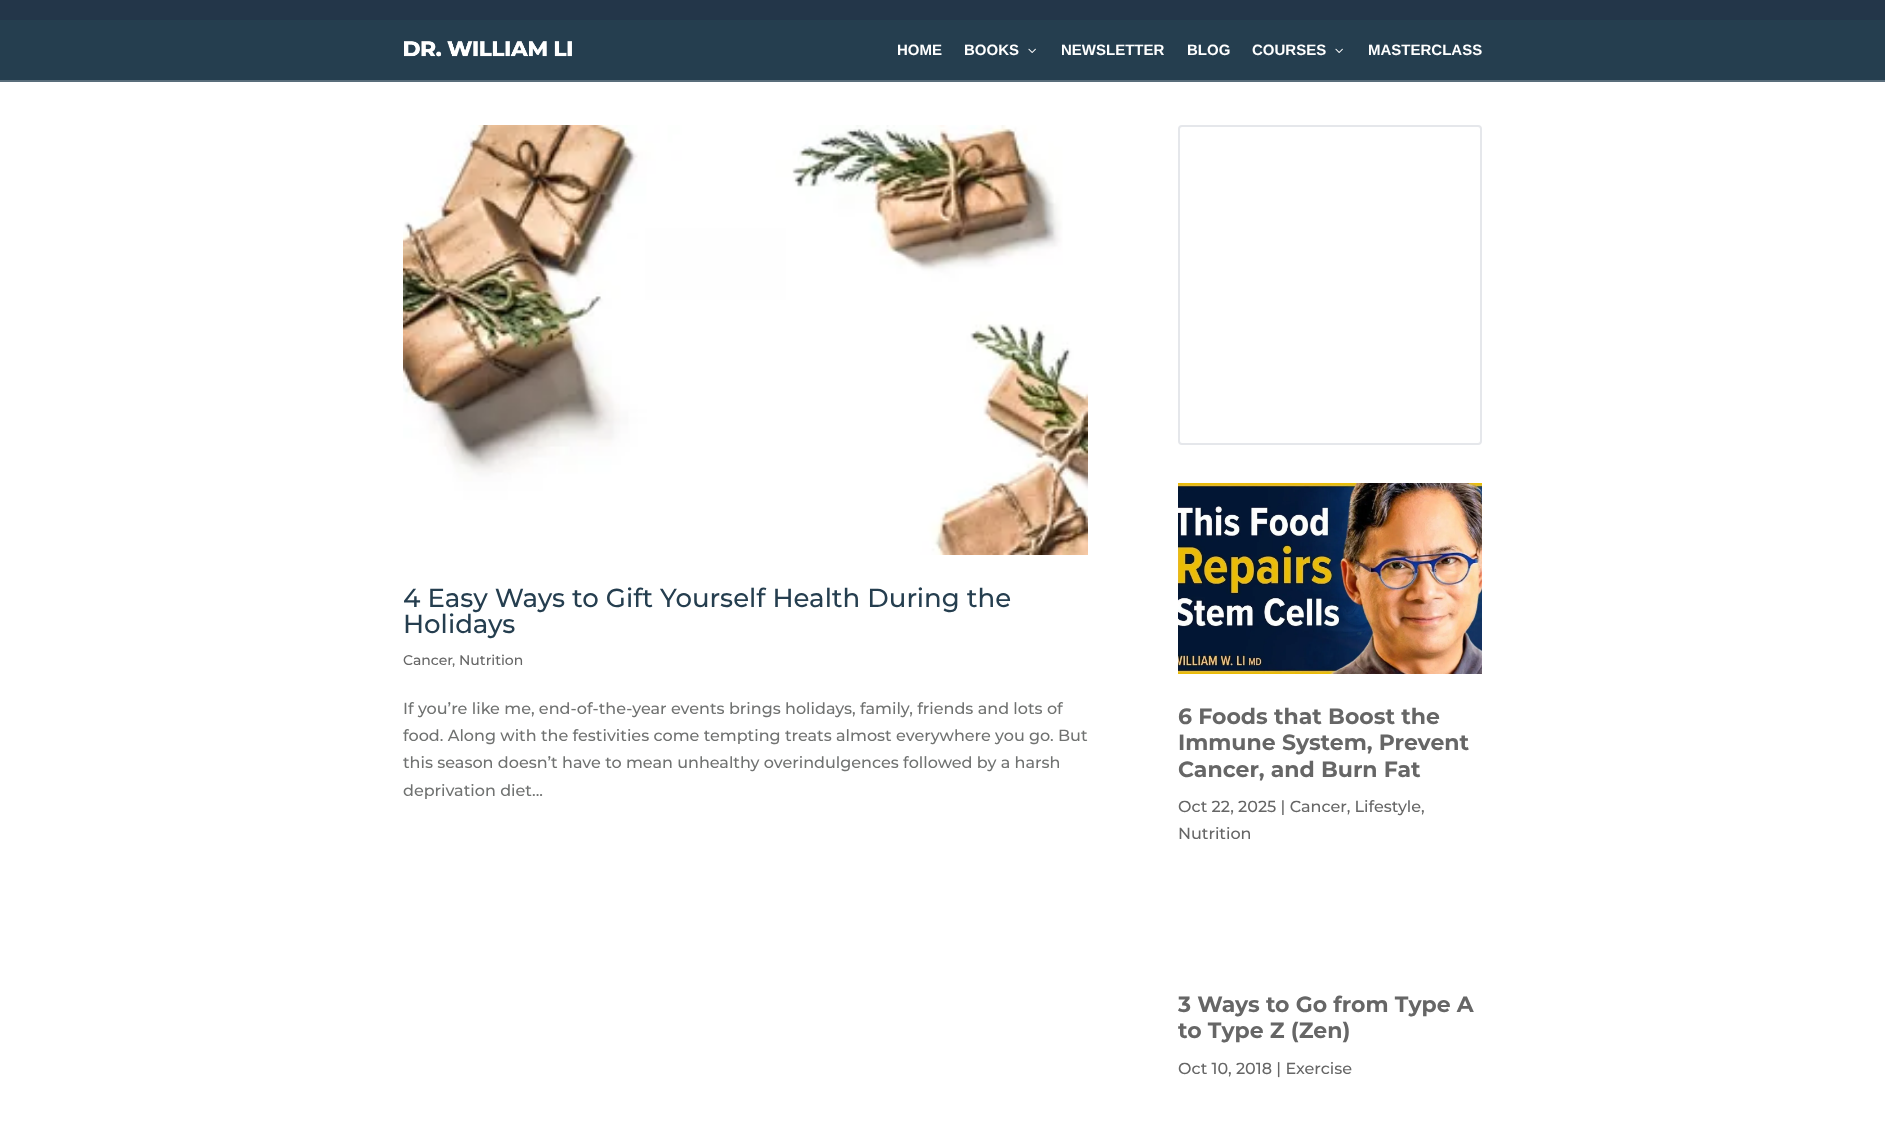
<svg xmlns="http://www.w3.org/2000/svg" width="1885" height="1134">
<rect width="100%" height="100%" fill="#fff"/>
<rect y="20" width="1885" height="60" fill="#253e4f"/>
<rect width="1885" height="20" fill="#233649"/>
<rect y="80" width="1885" height="2" fill="#596d7b"/>
<image x="404" y="41" width="168" height="16" href="media/1.png"/>
<text x="897" y="55" style="font-family:Liberation Sans;font-size:15px;font-weight:bold;fill:#fff">HOME</text>
<text x="964" y="55" style="font-family:Liberation Sans;font-size:15px;font-weight:bold;fill:#fff">BOOKS</text>
<image x="1028" y="48" width="8" height="5" href="media/2.png"/>
<text x="1061" y="55" style="font-family:Liberation Sans;font-size:15px;font-weight:bold;fill:#fff">NEWSLETTER</text>
<text x="1187" y="55" style="font-family:Liberation Sans;font-size:15px;font-weight:bold;fill:#fff">BLOG</text>
<text x="1252" y="55" style="font-family:Liberation Sans;font-size:15px;font-weight:bold;fill:#fff">COURSES</text>
<image x="1335" y="48" width="8" height="5" href="media/2.png"/>
<text x="1368" y="55" style="font-family:Liberation Sans;font-size:15px;font-weight:bold;fill:#fff">MASTERCLASS</text>
<image x="403" y="125" width="685" height="430" href="media/3.png"/>
<text x="403" y="607" style="font-family:Montserrat;font-size:26px;font-weight:500;fill:#253e4f">4 Easy Ways to Gift Yourself Health During the</text>
<text x="403" y="633" style="font-family:Montserrat;font-size:26px;font-weight:500;fill:#253e4f">Holidays</text>
<text x="403" y="665" style="font-family:Montserrat;font-size:14px;font-weight:500;fill:#666">Cancer</text>
<text x="452" y="665" style="font-family:Montserrat;font-size:14px;font-weight:500;fill:#707271">,</text>
<text x="459" y="665" style="font-family:Montserrat;font-size:14px;font-weight:500;fill:#666">Nutrition</text>
<text x="403" y="714" style="font-family:Montserrat;font-size:16px;font-weight:500;fill:#707271">If you’re like me, end-of-the-year events brings holidays, family, friends and lots of</text>
<text x="403" y="741" style="font-family:Montserrat;font-size:16px;font-weight:500;fill:#707271">food. Along with the festivities come tempting treats almost everywhere you go. But</text>
<text x="403" y="768" style="font-family:Montserrat;font-size:16px;font-weight:500;fill:#707271">this season doesn’t have to mean unhealthy overindulgences followed by a harsh</text>
<text x="403" y="796" style="font-family:Montserrat;font-size:16px;font-weight:500;fill:#707271">deprivation diet...</text>
<rect x="1179" y="126" width="302" height="318" rx="3" fill="none" stroke="#e5e7eb" stroke-width="2"/>
<image x="1178" y="483" width="304" height="191" href="media/4.png"/>
<text x="1178" y="724" style="font-family:Montserrat;font-size:22px;font-weight:bold;fill:#666">6 Foods that Boost the</text>
<text x="1178" y="750" style="font-family:Montserrat;font-size:22px;font-weight:bold;fill:#666">Immune System, Prevent</text>
<text x="1178" y="777" style="font-family:Montserrat;font-size:22px;font-weight:bold;fill:#666">Cancer, and Burn Fat</text>
<text x="1178" y="812" style="font-family:Montserrat;font-size:16px;font-weight:500;fill:#666">Oct 22, 2025 | Cancer, Lifestyle,</text>
<text x="1178" y="839" style="font-family:Montserrat;font-size:16px;font-weight:500;fill:#666">Nutrition</text>
<text x="1178" y="1012" style="font-family:Montserrat;font-size:22px;font-weight:bold;fill:#666">3 Ways to Go from Type A</text>
<text x="1178" y="1038" style="font-family:Montserrat;font-size:22px;font-weight:bold;fill:#666">to Type Z (Zen)</text>
<text x="1178" y="1074" style="font-family:Montserrat;font-size:16px;font-weight:500;fill:#666">Oct 10, 2018 | Exercise</text>
</svg>
